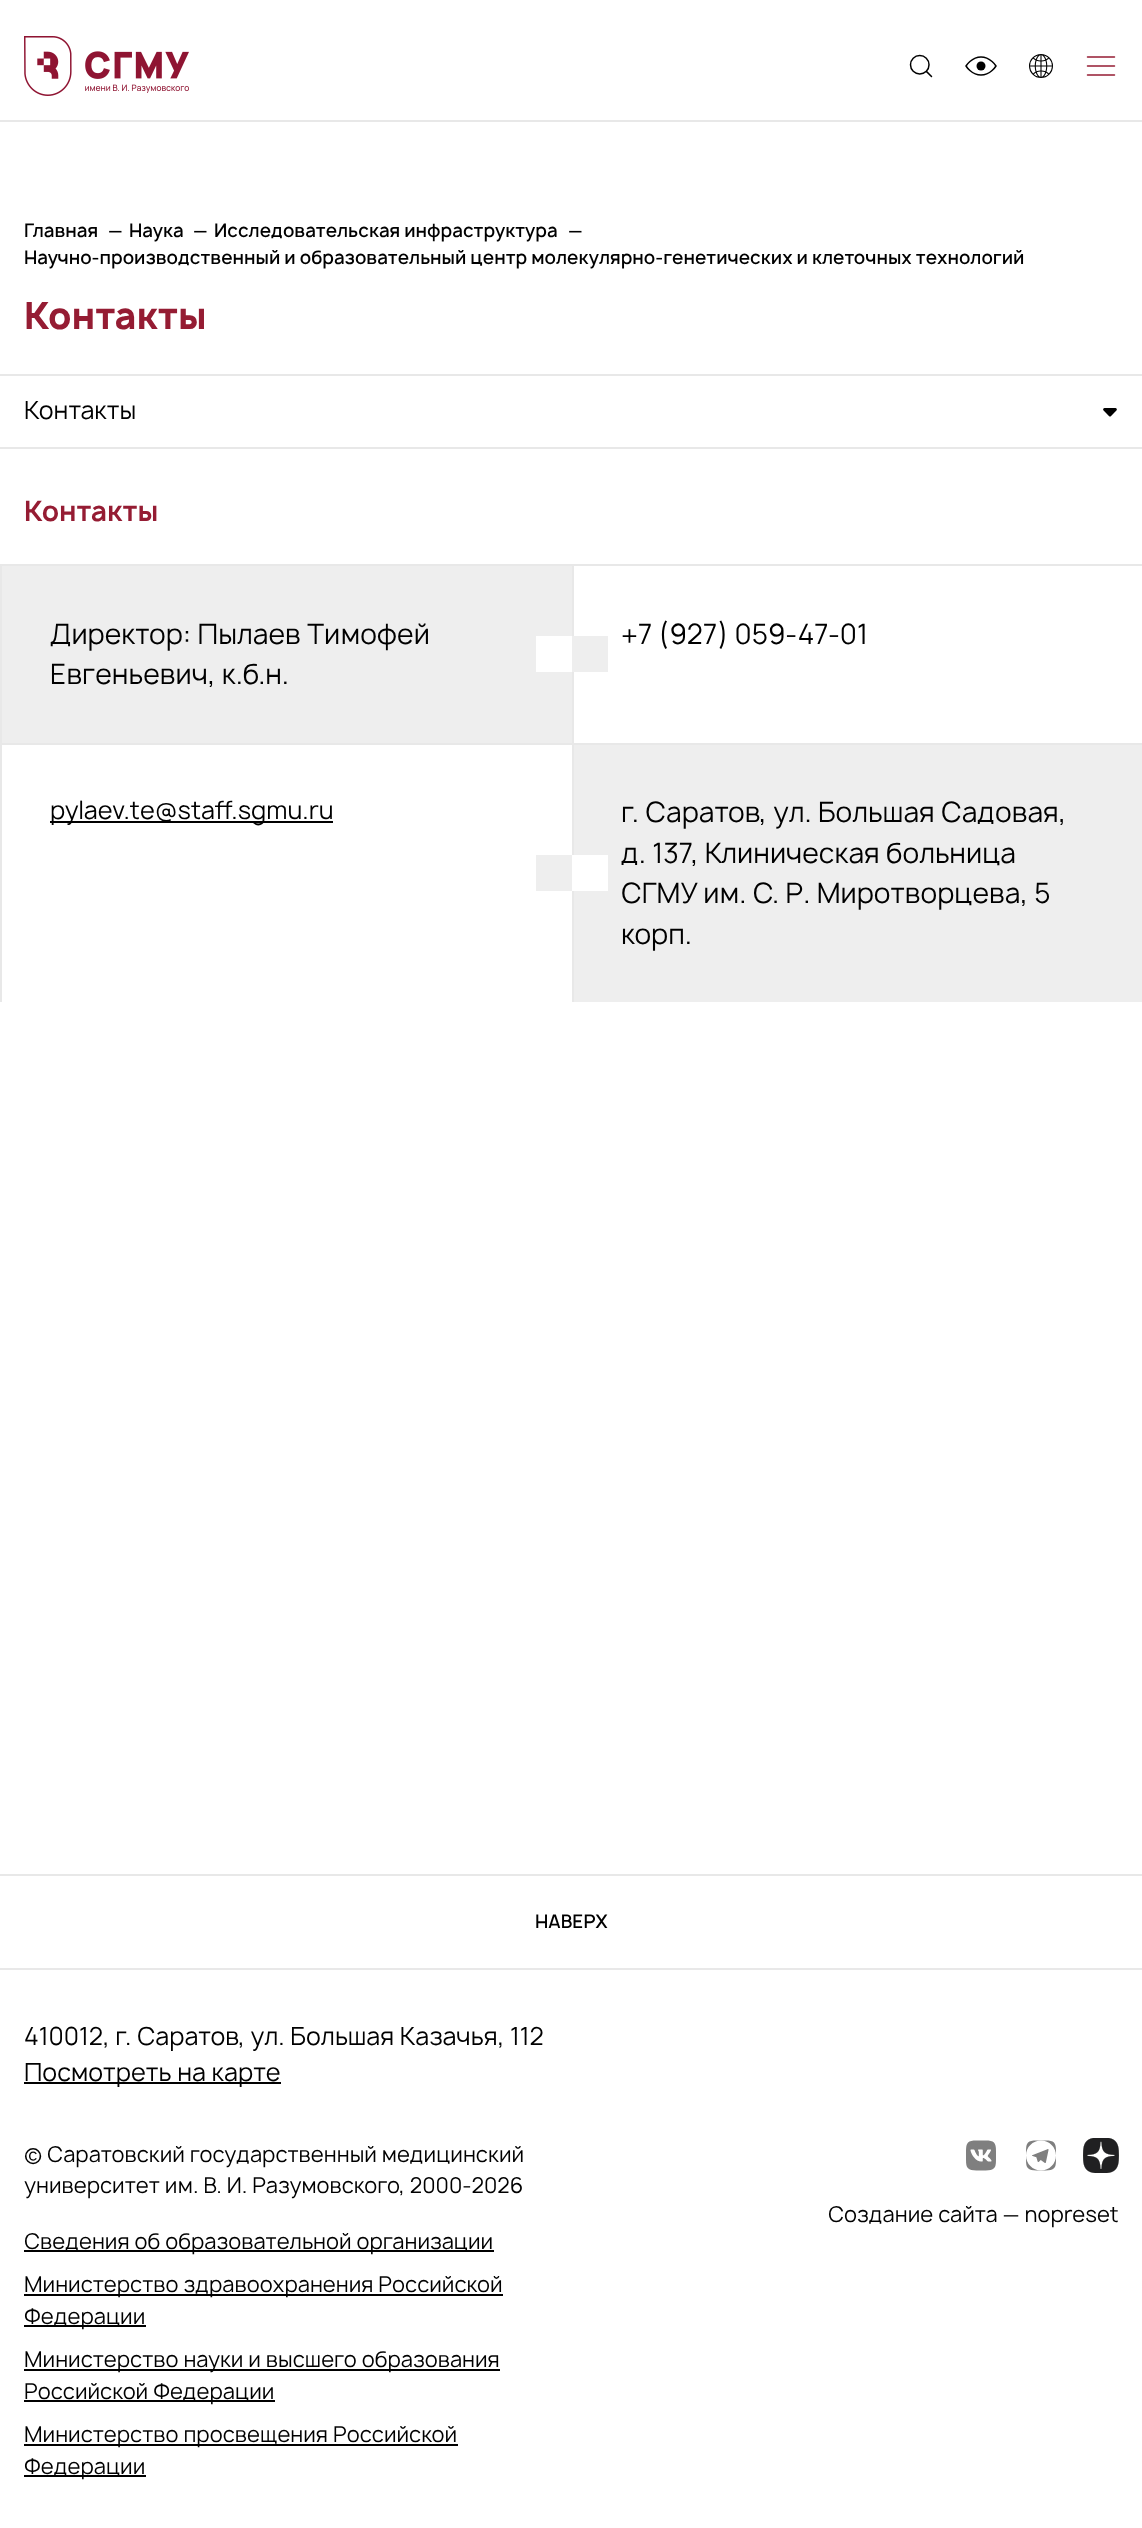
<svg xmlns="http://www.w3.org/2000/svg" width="1142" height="2528">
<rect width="100%" height="100%" fill="#fff"/>
<rect y="120" width="1142" height="2" fill="#e8e8e8"/>
<image x="24" y="36" width="165" height="60" href="media/1.png"/>
<image x="909" y="54" width="24" height="24" href="media/2.png"/>
<image x="965" y="56" width="32" height="20" href="media/3.png"/>
<image x="1029" y="54" width="24" height="24" href="media/4.png"/>
<image x="1086" y="56" width="30" height="20" href="media/5.png"/>
<rect y="447" width="1142" height="2" fill="#e8e8e8"/>
<text x="24" y="237" style="font-family:Manrope;font-size:18px;font-weight:600;fill:#000">Главная</text>
<text x="108" y="237" style="font-family:Manrope;font-size:18px;font-weight:600;fill:#000">—</text>
<text x="129" y="237" style="font-family:Manrope;font-size:18px;font-weight:600;fill:#000">Наука</text>
<text x="193" y="237" style="font-family:Manrope;font-size:18px;font-weight:600;fill:#000">—</text>
<text x="214" y="237" style="font-family:Manrope;font-size:18px;font-weight:600;fill:#000">Исследовательская инфраструктура</text>
<text x="568" y="237" style="font-family:Manrope;font-size:18px;font-weight:600;fill:#000">—</text>
<text x="24" y="264" style="font-family:Manrope;font-size:18px;font-weight:600;fill:#000">Научно-производственный и образовательный центр молекулярно-генетических и клеточных технологий</text>
<text x="24" y="329" style="font-family:Manrope;font-size:36px;font-weight:800;fill:#951c33">Контакты</text>
<rect y="374" width="1142" height="2" fill="#e8e8e8"/>
<text x="24" y="419" style="font-family:Manrope;font-size:24px;fill:#000">Контакты</text>
<image x="1103" y="408" width="14" height="9" href="media/6.png"/>
<text x="24" y="521" style="font-family:Manrope;font-size:27px;font-weight:bold;fill:#951c33">Контакты</text>
<rect x="2" y="566" width="570" height="177" fill="#eee"/>
<rect y="564" width="1142" height="2" fill="#e8e8e8"/>
<rect y="564" width="2" height="179" fill="#e8e8e8"/>
<text x="50" y="644" style="font-family:Manrope;font-size:27px;fill:#000">Директор: Пылаев Тимофей</text>
<rect x="536" y="636" width="36" height="36" fill="#fff"/>
<rect x="572" y="564" width="2" height="179" fill="#e8e8e8"/>
<rect x="572" y="636" width="36" height="36" fill="#eee"/>
<text x="50" y="684" style="font-family:Manrope;font-size:27px;fill:#000">Евгеньевич, к.б.н.</text>
<text x="621" y="644" style="font-family:Manrope;font-size:27px;fill:#000">+7 (927) 059-47-01</text>
<rect y="743" width="1142" height="2" fill="#e8e8e8"/>
<rect y="743" width="2" height="259" fill="#e8e8e8"/>
<rect x="50" y="821" width="283" height="2" fill="#000"/>
<text x="50" y="819" style="font-family:Manrope;font-size:24px;fill:#000">pylaev.te@staff.sgmu.ru</text>
<rect x="536" y="855" width="36" height="36" fill="#eee"/>
<rect x="574" y="745" width="568" height="257" fill="#eee"/>
<rect x="572" y="743" width="2" height="259" fill="#e8e8e8"/>
<rect x="572" y="855" width="36" height="36" fill="#fff"/>
<text x="621" y="822" style="font-family:Manrope;font-size:27px;fill:#000">г. Саратов, ул. Большая Садовая,</text>
<text x="621" y="863" style="font-family:Manrope;font-size:27px;fill:#000">д. 137, Клиническая больница</text>
<text x="621" y="903" style="font-family:Manrope;font-size:27px;fill:#000">СГМУ им. С. Р. Миротворцева, 5</text>
<text x="621" y="944" style="font-family:Manrope;font-size:27px;fill:#000">корп.</text>
<rect y="1874" width="1142" height="2" fill="#e8e8e8"/>
<text x="535" y="1928" style="font-family:Manrope;font-size:18px;font-weight:600;fill:#000">НАВЕРХ</text>
<rect y="1968" width="1142" height="2" fill="#e8e8e8"/>
<text x="24" y="2045" style="font-family:Manrope;font-size:24px;fill:#000">410012, г. Саратов, ул. Большая Казачья, 112</text>
<rect x="24" y="2082" width="257" height="2" fill="#000"/>
<text x="24" y="2081" style="font-family:Manrope;font-size:24px;fill:#000">Посмотреть на карте</text>
<text x="24" y="2162" style="font-family:Manrope;font-size:21px;fill:#000">© Саратовский государственный медицинский</text>
<text x="24" y="2193" style="font-family:Manrope;font-size:21px;fill:#000">университет им. В. И. Разумовского, 2000‑2026</text>
<rect x="24" y="2250" width="470" height="2" fill="#000"/>
<text x="24" y="2249" style="font-family:Manrope;font-size:21px;fill:#000">Сведения об образовательной организации</text>
<rect x="24" y="2294" width="479" height="2" fill="#000"/>
<text x="24" y="2292" style="font-family:Manrope;font-size:21px;fill:#000">Министерство здравоохранения Российской</text>
<rect x="24" y="2325" width="122" height="2" fill="#000"/>
<text x="24" y="2324" style="font-family:Manrope;font-size:21px;fill:#000">Федерации</text>
<rect x="24" y="2369" width="476" height="2" fill="#000"/>
<text x="24" y="2367" style="font-family:Manrope;font-size:21px;fill:#000">Министерство науки и высшего образования</text>
<rect x="24" y="2400" width="251" height="2" fill="#000"/>
<text x="24" y="2399" style="font-family:Manrope;font-size:21px;fill:#000">Российской Федерации</text>
<rect x="24" y="2444" width="434" height="2" fill="#000"/>
<text x="24" y="2442" style="font-family:Manrope;font-size:21px;fill:#000">Министерство просвещения Российской</text>
<rect x="24" y="2475" width="122" height="2" fill="#000"/>
<text x="24" y="2474" style="font-family:Manrope;font-size:21px;fill:#000">Федерации</text>
<image x="966" y="2140" width="30" height="31" href="media/7.png"/>
<image x="1026" y="2140" width="30" height="31" href="media/8.png"/>
<image x="1083" y="2138" width="36" height="35" href="media/9.png"/>
<text x="828" y="2222" style="font-family:Manrope;font-size:21px;fill:#000">Создание сайта — nopreset</text>
</svg>
